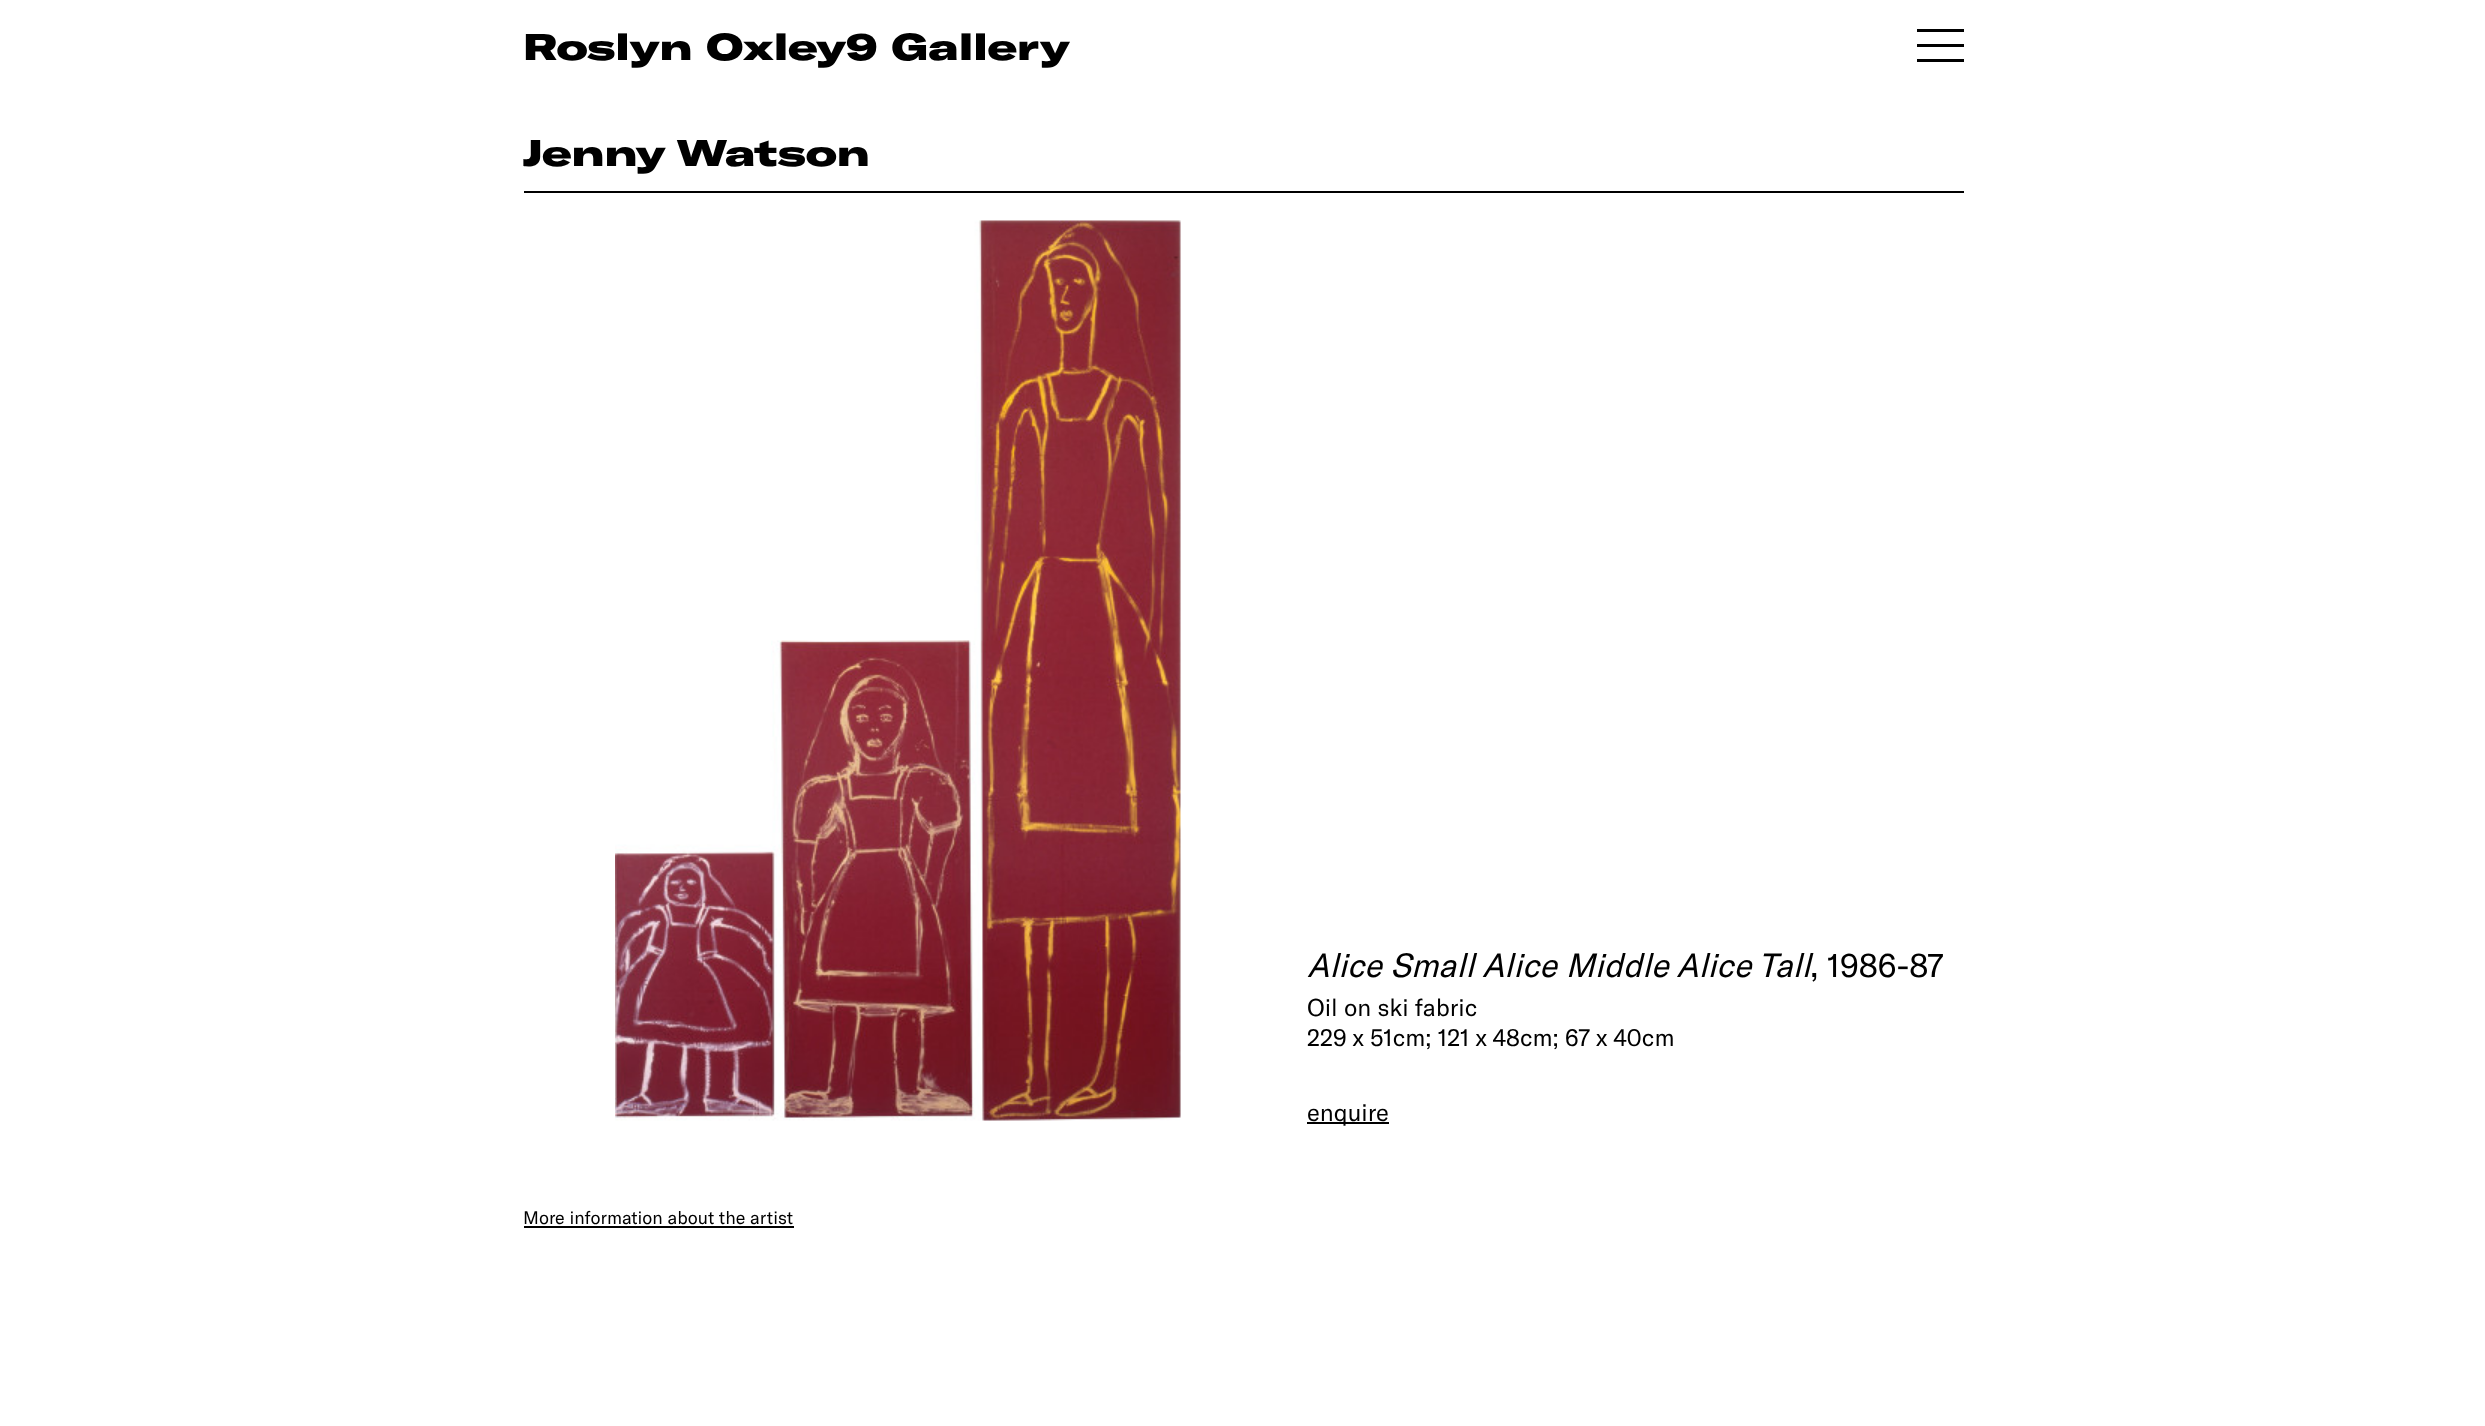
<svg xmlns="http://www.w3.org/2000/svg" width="2485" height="1426">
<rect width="100%" height="100%" fill="#fff"/>
<text x="523" y="60" style="font-family:GT America;font-size:36.75px;font-weight:900;fill:#000">Roslyn Oxley9 Gallery</text>
<rect x="1917" y="29" width="47" height="3" fill="#000"/>
<rect x="1917" y="44" width="47" height="3" fill="#000"/>
<rect x="1917" y="59" width="47" height="3" fill="#000"/>
<rect x="524" y="191" width="1440" height="2" fill="#000"/>
<text x="523" y="166" style="font-family:GT America;font-size:36.75px;font-weight:900;fill:#000">Jenny Watson</text>
<image x="615" y="220" width="566" height="901" href="media/1.png"/>
<text x="1307" y="977" style="font-family:GT America;font-size:33px;font-style:italic;fill:#000">Alice Small Alice Middle Alice Tall</text>
<text x="1810" y="977" style="font-family:GT America;font-size:33px;fill:#000">, 1986-87</text>
<text x="1307" y="1016" style="font-family:GT America;font-size:24px;fill:#000">Oil on ski fabric</text>
<text x="1307" y="1046" style="font-family:GT America;font-size:24px;fill:#000">229 x 51cm; 121 x 48cm; 67 x 40cm</text>
<rect x="1307" y="1122" width="82" height="2" fill="#000"/>
<text x="1307" y="1121" style="font-family:GT America;font-size:24px;fill:#000">enquire</text>
<text x="523" y="1224" style="font-family:GT America;font-size:18px;fill:#000">More information about the artist</text>
<rect x="524" y="1226" width="270" height="2" fill="#000"/>
</svg>
